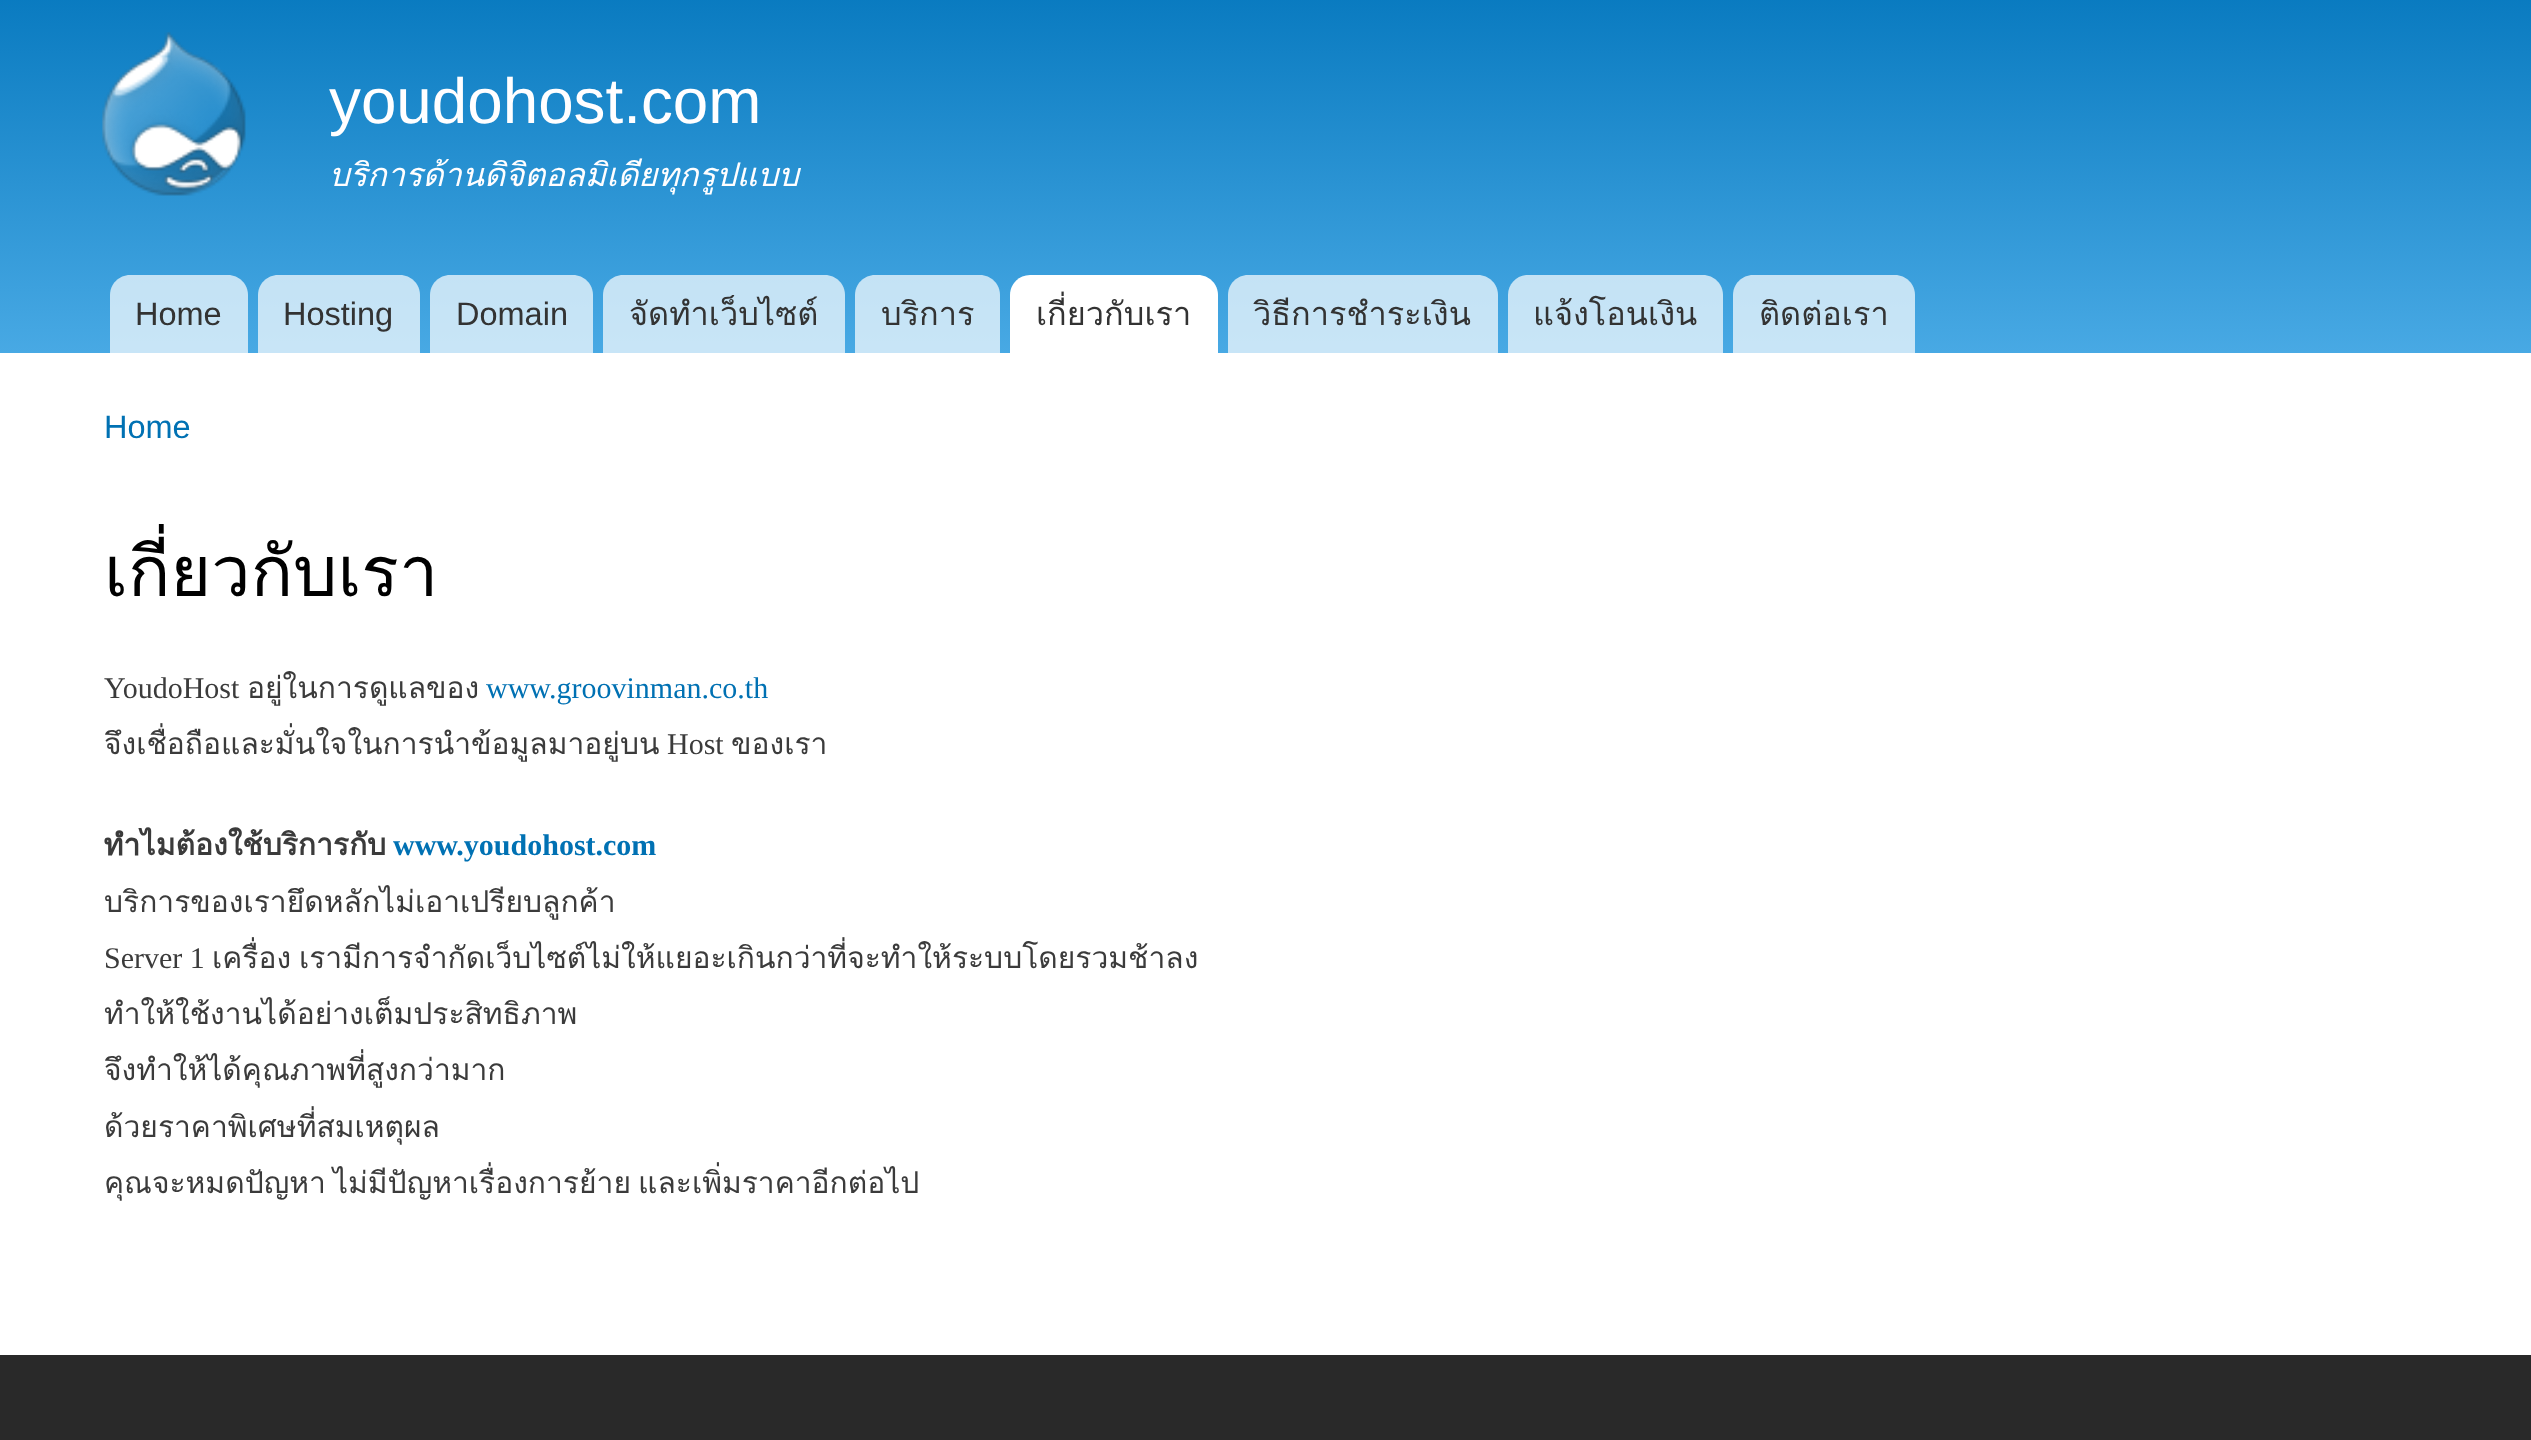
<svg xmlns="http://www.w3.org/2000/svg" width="2531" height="1440">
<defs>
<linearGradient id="g1" gradientUnits="userSpaceOnUse" x1="1266" y1="-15" x2="1266" y2="353"><stop offset="0" stop-color="#0779bf"/><stop offset="1" stop-color="#48a9e4"/></linearGradient>
</defs>
<rect width="100%" height="100%" fill="#fff"/>
<rect width="2531" height="353" fill="url(#g1)"/>
<image x="102" y="32" width="144" height="164" href="media/1.png"/>
<text x="329" y="123" style="font-family:Liberation Sans;font-size:63.75px;fill:#fffeff">youdohost.com</text>
<text x="329" y="186" style="font-family:Loma;font-size:32.5px;font-style:italic;fill:#fffeff">บริการด้านดิจิตอลมิเดียทุกรูปแบบ</text>
<path d="M130 275h98c11 0 20 9 20 20v58h-138v-58c0-11 9-20 20-20z" fill="#ffffffb3"/>
<text x="135" y="325" style="font-family:Liberation Sans;font-size:32.5px;fill:#333">Home</text>
<path d="M278 275h122c11 0 20 9 20 20v58h-162v-58c0-11 9-20 20-20z" fill="#ffffffb3"/>
<text x="283" y="325" style="font-family:Liberation Sans;font-size:32.5px;fill:#333">Hosting</text>
<path d="M450 275h123c11 0 20 9 20 20v58h-163v-58c0-11 9-20 20-20z" fill="#ffffffb3"/>
<text x="456" y="325" style="font-family:Liberation Sans;font-size:32.5px;fill:#333">Domain</text>
<path d="M623 275h202c11 0 20 9 20 20v58h-242v-58c0-11 9-20 20-20z" fill="#ffffffb3"/>
<text x="629" y="325" style="font-family:Loma;font-size:32.5px;fill:#333">จัดทำเว็บไซต์</text>
<path d="M875 275h105c11 0 20 9 20 20v58h-145v-58c0-11 9-20 20-20z" fill="#ffffffb3"/>
<text x="881" y="325" style="font-family:Loma;font-size:32.5px;fill:#333">บริการ</text>
<path d="M1030 275h168c11 0 20 9 20 20v58h-208v-58c0-11 9-20 20-20z" fill="#fff"/>
<text x="1036" y="325" style="font-family:Loma;font-size:32.5px;fill:#333">เกี่ยวกับเรา</text>
<path d="M1248 275h230c11 0 20 9 20 20v58h-270v-58c0-11 9-20 20-20z" fill="#ffffffb3"/>
<text x="1253" y="325" style="font-family:Loma;font-size:32.5px;fill:#333">วิธีการชำระเงิน</text>
<path d="M1528 275h175c11 0 20 9 20 20v58h-215v-58c0-11 9-20 20-20z" fill="#ffffffb3"/>
<text x="1533" y="325" style="font-family:Loma;font-size:32.5px;fill:#333">แจ้งโอนเงิน</text>
<path d="M1753 275h142c11 0 20 9 20 20v58h-182v-58c0-11 9-20 20-20z" fill="#ffffffb3"/>
<text x="1759" y="325" style="font-family:Loma;font-size:32.5px;fill:#333">ติดต่อเรา</text>
<text x="104" y="438" style="font-family:Liberation Sans;font-size:32.5px;fill:#0071b3">Home</text>
<text x="104" y="596" style="font-family:Loma;font-size:70px;fill:#000">เกี่ยวกับเรา</text>
<text x="104" y="698" style="font-family:Liberation Serif;font-size:30px;fill:#3b3b3b">YoudoHost</text>
<text x="247" y="698" style="font-family:Loma;font-size:30px;fill:#3b3b3b">อยู่ในการดูแลของ</text>
<text x="486" y="698" style="font-family:Liberation Serif;font-size:30px;fill:#0071b3">www.groovinman.co.th</text>
<text x="104" y="754" style="font-family:Loma;font-size:30px;fill:#3b3b3b">จึงเชื่อถือและมั่นใจในการนำข้อมูลมาอยู่บน</text>
<text x="667" y="754" style="font-family:Liberation Serif;font-size:30px;fill:#3b3b3b">Host</text>
<text x="731" y="754" style="font-family:Loma;font-size:30px;fill:#3b3b3b">ของเรา</text>
<text x="104" y="855" style="font-family:Loma;font-size:30px;font-weight:bold;fill:#3b3b3b">ทำไมต้องใช้บริการกับ</text>
<text x="393" y="855" style="font-family:Liberation Serif;font-size:30px;font-weight:bold;fill:#0071b3">www.youdohost.com</text>
<text x="104" y="912" style="font-family:Loma;font-size:30px;fill:#3b3b3b">บริการของเรายึดหลักไม่เอาเปรียบลูกค้า</text>
<text x="104" y="968" style="font-family:Liberation Serif;font-size:30px;fill:#3b3b3b">Server 1</text>
<text x="212" y="968" style="font-family:Loma;font-size:30px;fill:#3b3b3b">เครื่อง</text>
<text x="299" y="968" style="font-family:Loma;font-size:30px;fill:#3b3b3b">เรามีการจำกัดเว็บไซต์ไม่ให้แยอะเกินกว่าที่จะทำให้ระบบโดยรวมช้าลง</text>
<text x="104" y="1024" style="font-family:Loma;font-size:30px;fill:#3b3b3b">ทำให้ใช้งานได้อย่างเต็มประสิทธิภาพ</text>
<text x="104" y="1080" style="font-family:Loma;font-size:30px;fill:#3b3b3b">จึงทำให้ได้คุณภาพที่สูงกว่ามาก</text>
<text x="104" y="1137" style="font-family:Loma;font-size:30px;fill:#3b3b3b">ด้วยราคาพิเศษที่สมเหตุผล</text>
<text x="104" y="1193" word-spacing="-3" style="font-family:Loma;font-size:30px;fill:#3b3b3b">คุณจะหมดปัญหา ไม่มีปัญหาเรื่องการย้าย และเพิ่มราคาอีกต่อไป</text>
<rect y="1355" width="2531" height="85" fill="#292929"/>
</svg>
